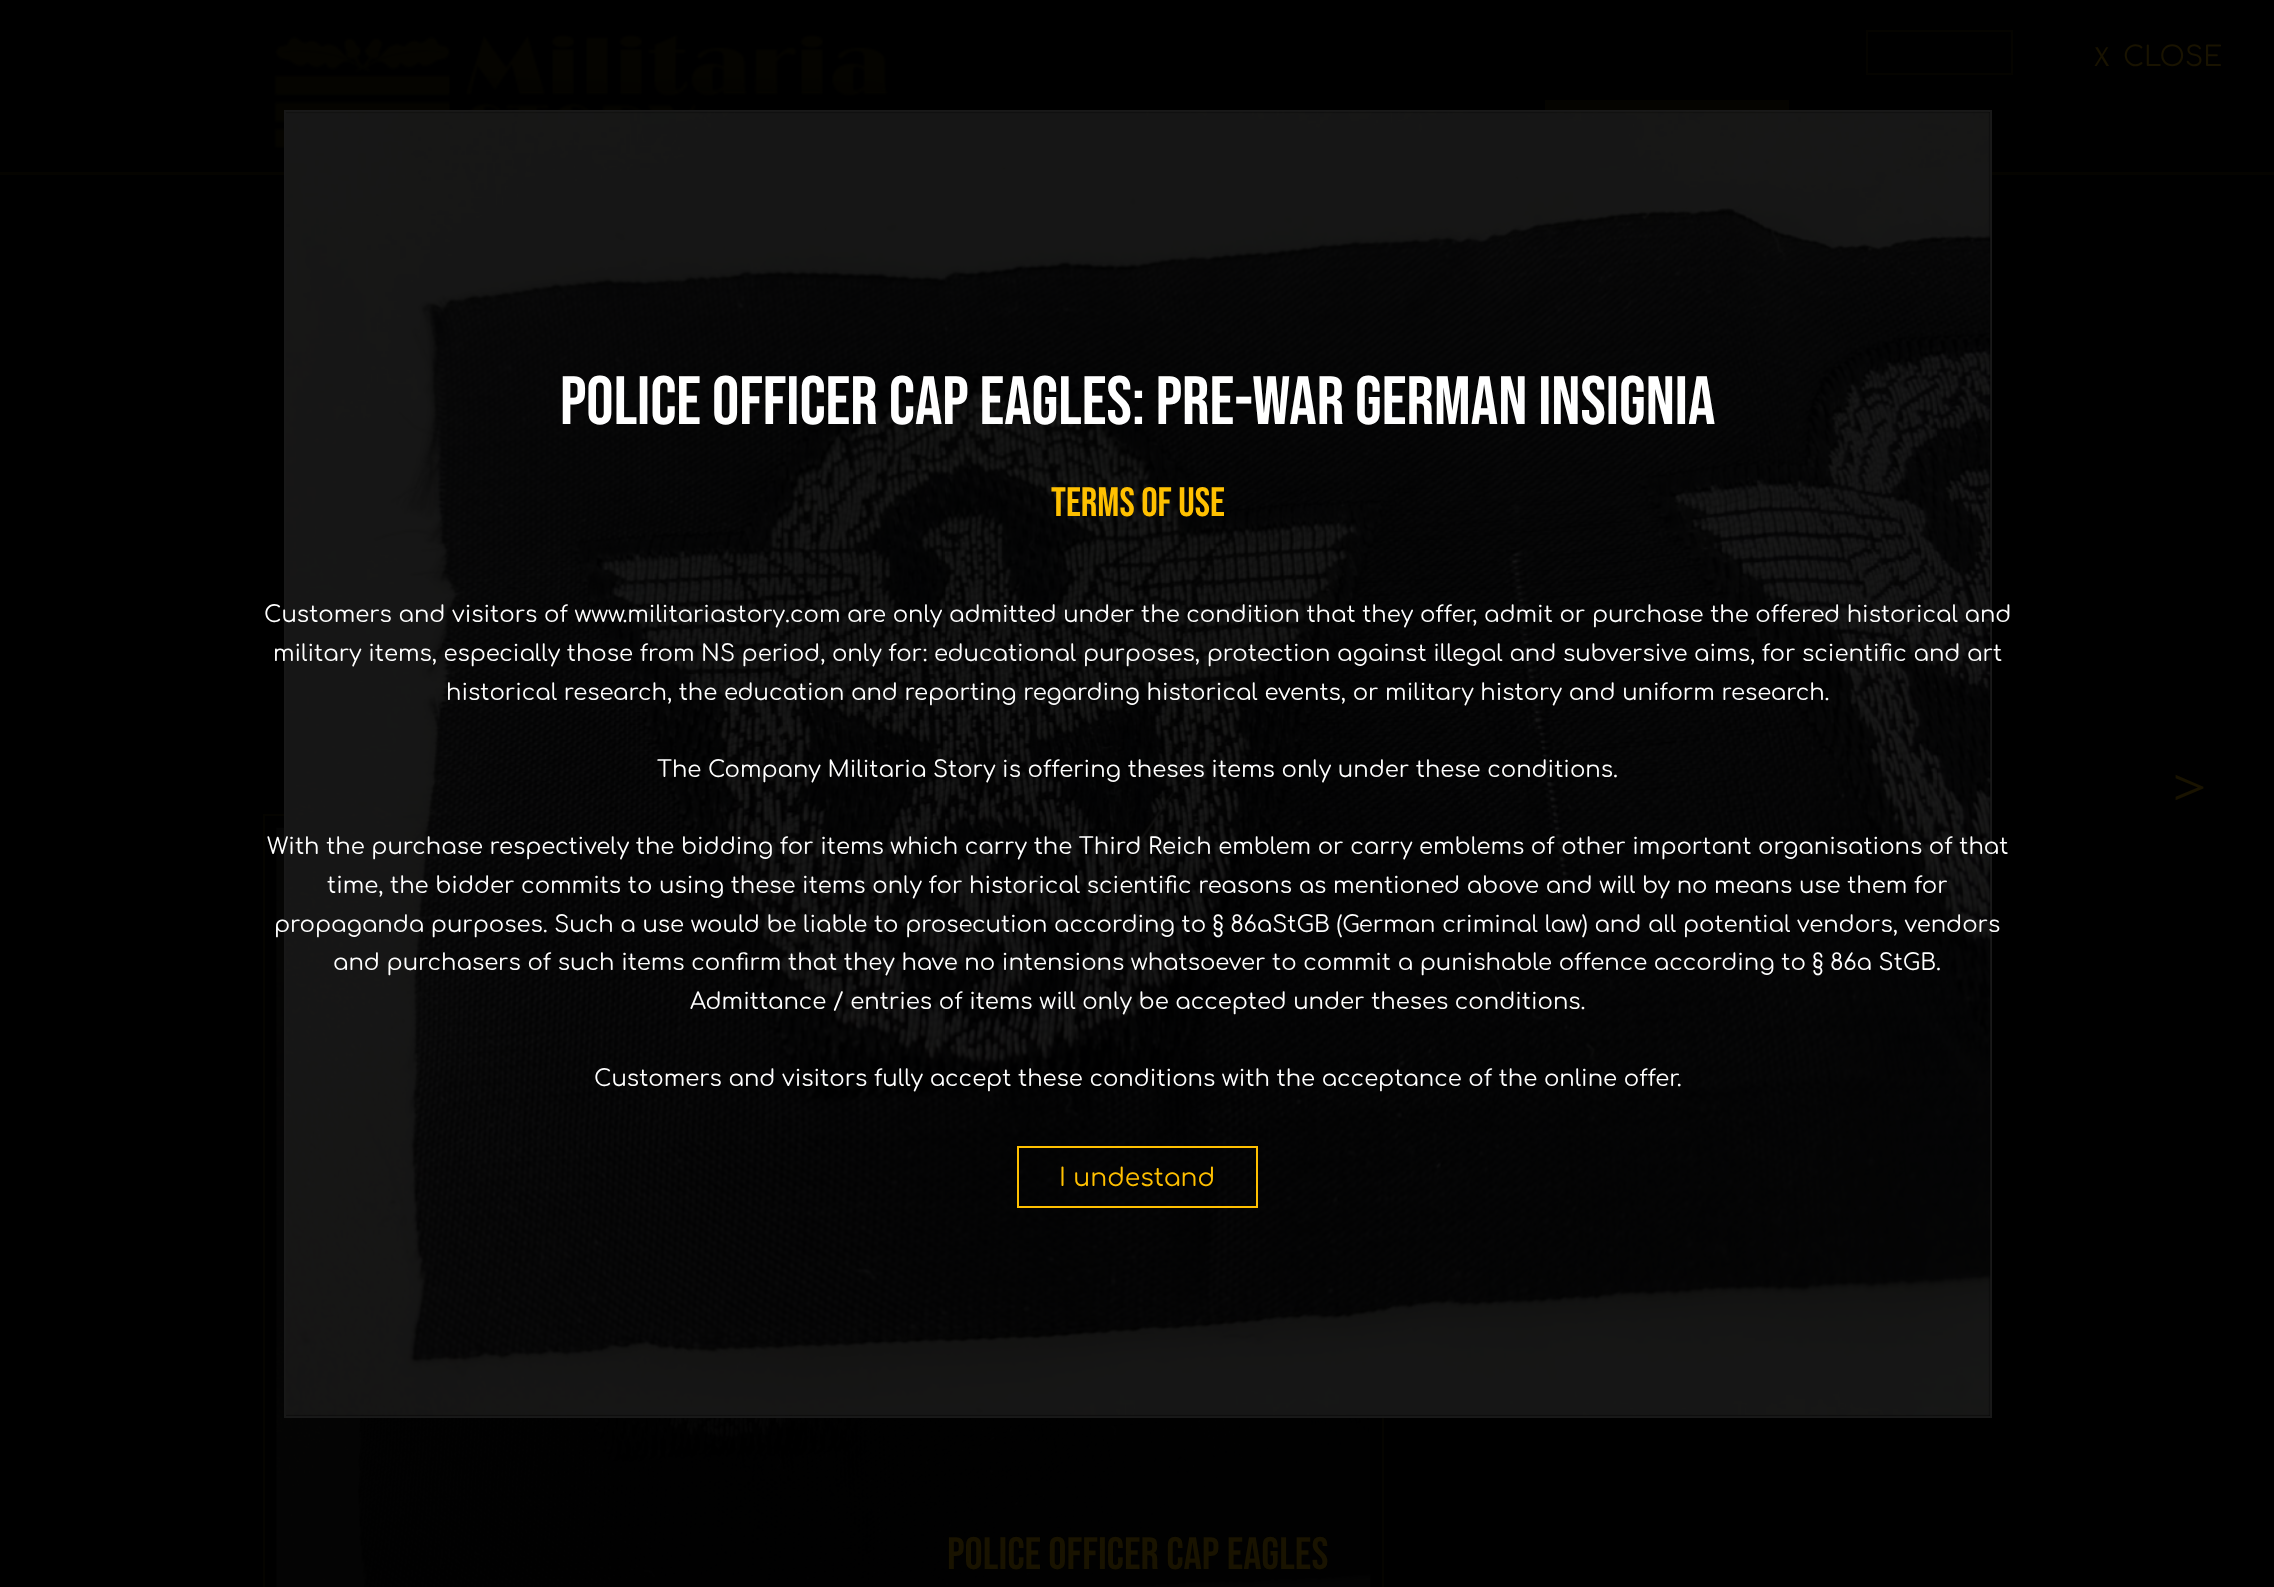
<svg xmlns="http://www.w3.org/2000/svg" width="2274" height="1587">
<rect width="100%" height="100%" fill="#000"/>
<image x="274" y="34" width="614" height="115" href="media/1.png"/>
<rect x="1867" y="31" width="145" height="43" fill="none" stroke="#050400" stroke-width="2"/>
<rect x="1545" y="100" width="244" height="14" fill="#050400"/>
<rect y="172" width="2274" height="3" fill="#050400"/>
<text x="2088" y="66" style="font-family:WenQuanYi Zen Hei;font-size:27.5px;font-weight:500;fill:#191300">Ｘ</text>
<text x="2123" y="66" style="font-family:Comfortaa;font-size:27.5px;fill:#191300">CLOSE</text>
<rect x="264" y="815" width="1119" height="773" fill="none" stroke="#050400" stroke-width="2"/>
<image x="276" y="827" width="1095" height="760" href="media/3.png"/>
<rect x="285" y="111" width="1706" height="1306" fill="none" stroke="#191919" stroke-width="2"/>
<image x="284" y="111" width="1707" height="1306" href="media/2.png"/>
<text x="2161" y="804" style="font-family:WenQuanYi Zen Hei;font-size:57px;font-weight:500;fill:#191300">＞</text>
<text x="947" y="1569" style="font-family:Bebas Neue;font-size:45.5px;fill:#191300">Police Officer Cap Eagles</text>
<text x="560" y="424" style="font-family:Bebas Neue;font-size:68.25px;fill:#fff">Police Officer Cap Eagles: pre-war German Insignia</text>
<text x="1051" y="516" style="font-family:Bebas Neue;font-size:41px;fill:#ffc000">Terms of use</text>
<text x="264" y="622" style="font-family:Comfortaa;font-size:22.75px;fill:#fff">Customers and visitors of www.militariastory.com are only admitted under the condition that they offer, admit or purchase the offered historical and</text>
<text x="273" y="661" style="font-family:Comfortaa;font-size:22.75px;fill:#fff">military items, especially those from NS period, only for: educational purposes, protection against illegal and subversive aims, for scientific and art</text>
<text x="446" y="700" style="font-family:Comfortaa;font-size:22.75px;fill:#fff">historical research, the education and reporting regarding historical events, or military history and uniform research.</text>
<text x="657" y="777" style="font-family:Comfortaa;font-size:22.75px;fill:#fff">The Company Militaria Story is offering theses items only under these conditions.</text>
<text x="267" y="854" style="font-family:Comfortaa;font-size:22.75px;fill:#fff">With the purchase respectively the bidding for items which carry the Third Reich emblem or carry emblems of other important organisations of that</text>
<text x="327" y="893" style="font-family:Comfortaa;font-size:22.75px;fill:#fff">time, the bidder commits to using these items only for historical scientific reasons as mentioned above and will by no means use them for</text>
<text x="274" y="932" style="font-family:Comfortaa;font-size:22.75px;fill:#fff">propaganda purposes. Such a use would be liable to prosecution according to § 86aStGB (German criminal law) and all potential vendors, vendors</text>
<text x="333" y="970" style="font-family:Comfortaa;font-size:22.75px;fill:#fff">and purchasers of such items confirm that they have no intensions whatsoever to commit a punishable offence according to § 86a StGB.</text>
<text x="690" y="1009" style="font-family:Comfortaa;font-size:22.75px;fill:#fff">Admittance / entries of items will only be accepted under theses conditions.</text>
<text x="594" y="1086" style="font-family:Comfortaa;font-size:22.75px;fill:#fff">Customers and visitors fully accept these conditions with the acceptance of the online offer.</text>
<rect x="1018" y="1147" width="239" height="60" fill="none" stroke="#ffc000" stroke-width="2"/>
<text x="1059" y="1186" style="font-family:Comfortaa;font-size:25px;fill:#ffc000">I undestand</text>
</svg>
